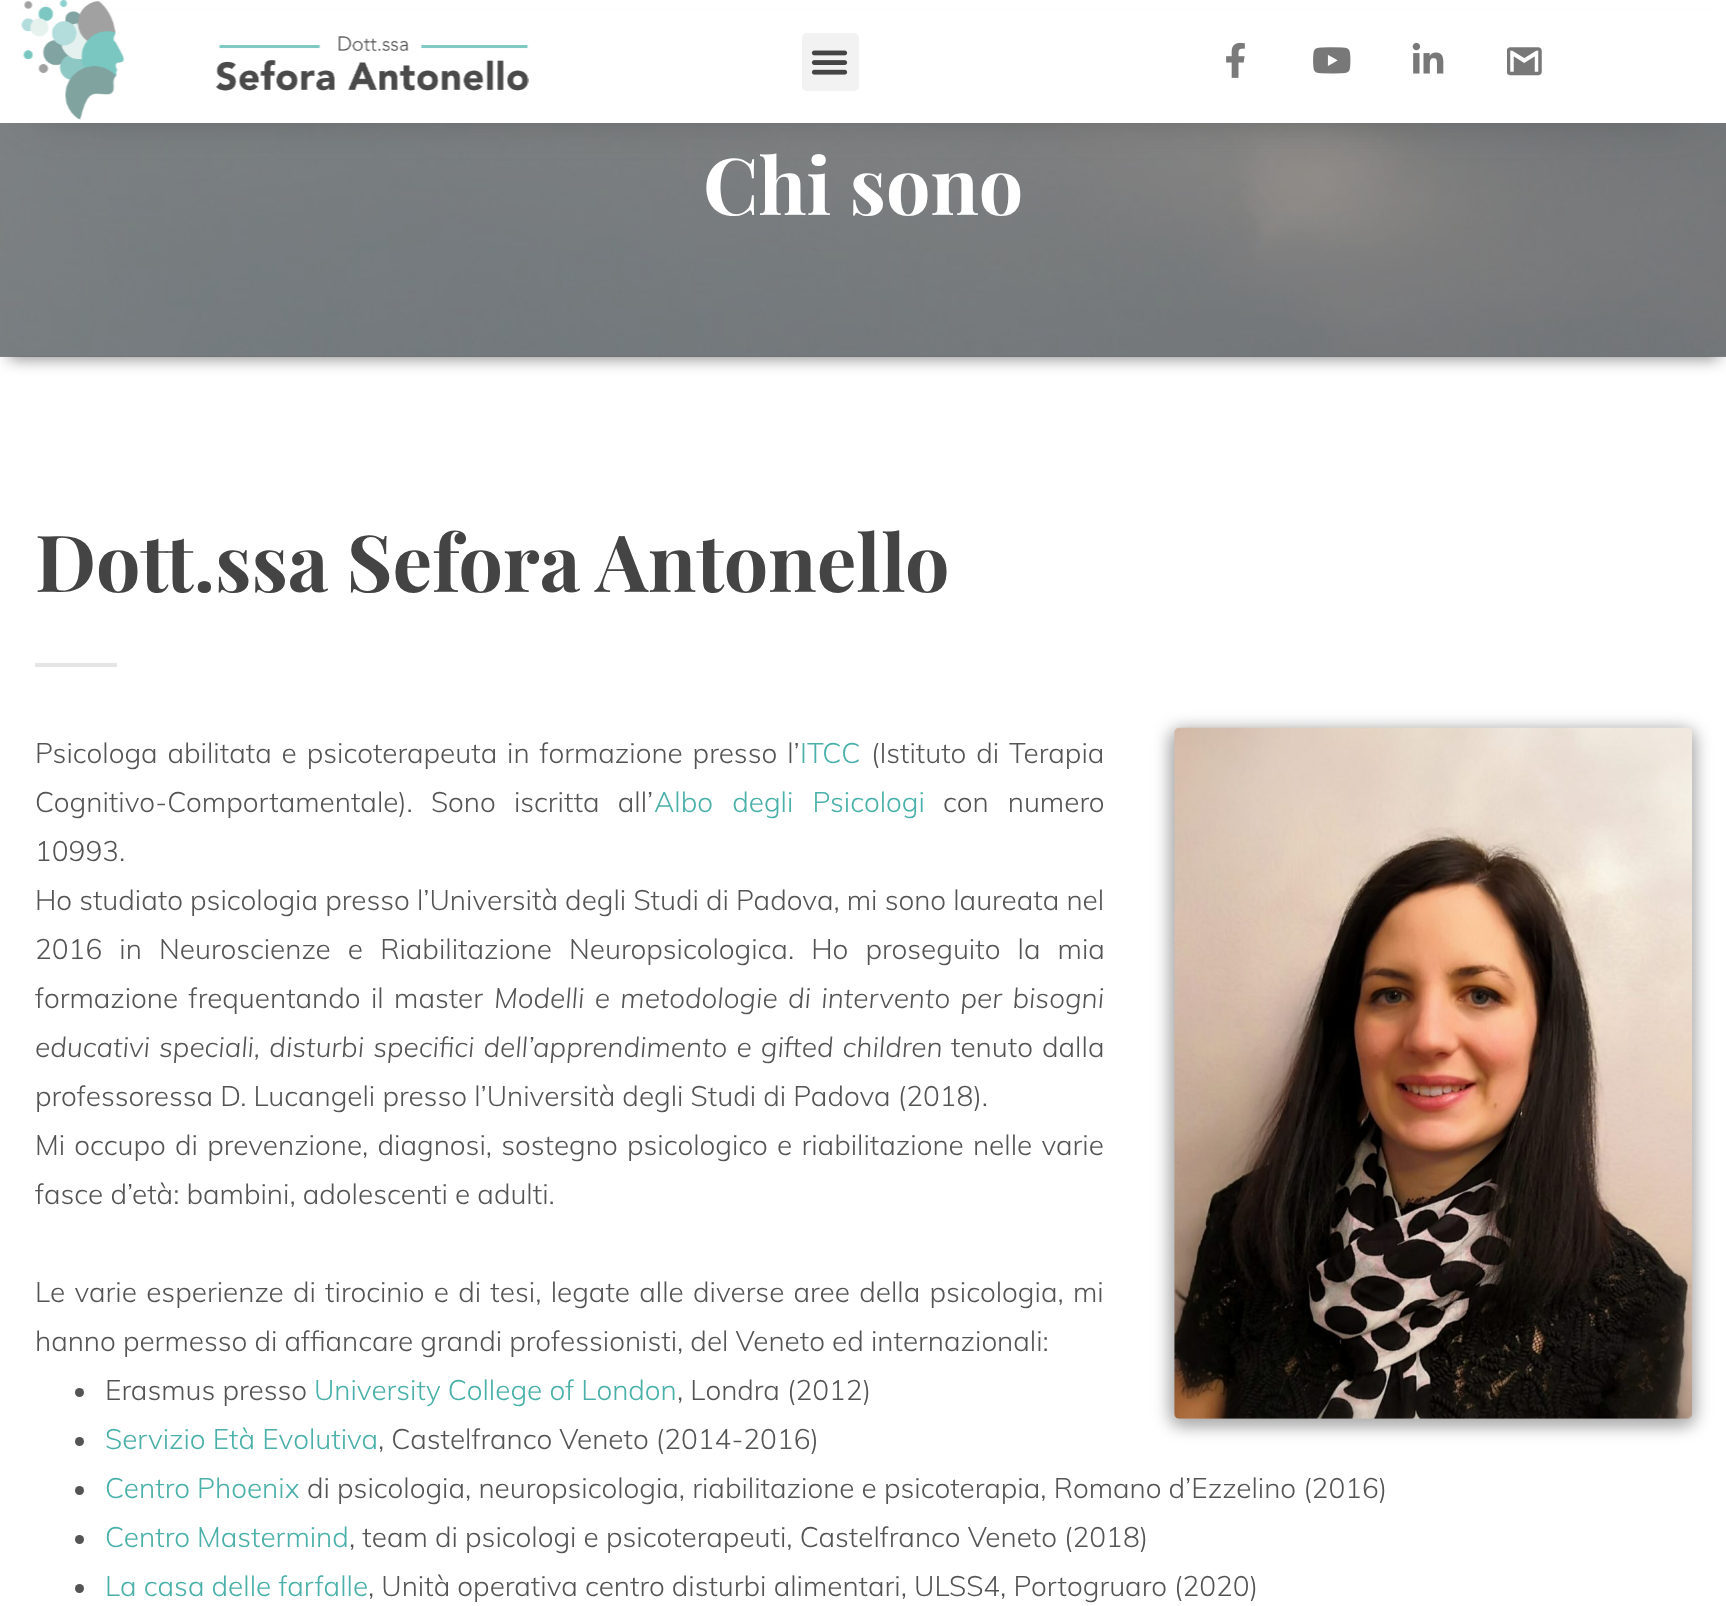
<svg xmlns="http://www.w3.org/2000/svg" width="1726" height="1606">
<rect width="100%" height="100%" fill="#fff"/>
<rect y="356" width="1726" height="1" fill="#949494"/>
<rect x="9" y="26" width="1710" height="333" fill="#00000070" filter="blur(8px)"/>
<image x="0" y="123" width="1726" height="234" href="media/8.png"/>
<rect x="40" y="70" width="1647" height="42" fill="#545454cc" filter="blur(21px)"/>
<rect y="10" width="1726" height="113" fill="#fff"/>
<image x="21" y="0" width="104" height="120" href="media/1.png"/>
<image x="215" y="36" width="314" height="55" href="media/2.png"/>
<rect x="802" y="33" width="57" height="58" rx="5" fill="#f2f2f2"/>
<image x="811" y="50" width="37" height="25" href="media/3.png"/>
<image x="1226" y="42" width="19" height="36" href="media/4.png"/>
<image x="1313" y="47" width="38" height="27" href="media/5.png"/>
<image x="1412" y="42" width="32" height="32" href="media/6.png"/>
<image x="1507" y="47" width="35" height="29" href="media/7.png"/>
<text x="703" y="215" style="font-family:Playfair Display;font-size:78.75px;font-weight:bold;fill:#fff">Chi sono</text>
<text x="35" y="592" style="font-family:Playfair Display;font-size:78.75px;font-weight:bold;fill:#444">Dott.ssa Sefora Antonello</text>
<rect x="35" y="663" width="82" height="4" fill="#e5e5e5"/>
<text x="35" y="763" word-spacing="2.75" style="font-family:Muli;font-size:28px;font-weight:300;fill:#545454">Psicologa abilitata e psicoterapeuta in formazione presso l’</text>
<text x="800" y="763" style="font-family:Muli;font-size:28px;font-weight:300;fill:#4ab0a9">ITCC</text>
<text x="871" y="763" word-spacing="2.75" style="font-family:Muli;font-size:28px;font-weight:300;fill:#545454">(Istituto di Terapia</text>
<rect x="1171" y="732" width="518" height="691" rx="5" fill="#adadad" filter="blur(9px)"/>
<rect x="1176" y="732" width="518" height="691" rx="5" fill="#adadad" filter="blur(9px)"/>
<image x="1174" y="727" width="519" height="692" href="media/9.png"/>
<text x="35" y="812" word-spacing="11" style="font-family:Muli;font-size:28px;font-weight:300;fill:#545454">Cognitivo-Comportamentale). Sono iscritta all’</text>
<text x="654" y="812" word-spacing="12" style="font-family:Muli;font-size:28px;font-weight:300;fill:#4ab0a9">Albo degli Psicologi</text>
<text x="943" y="812" word-spacing="12" style="font-family:Muli;font-size:28px;font-weight:300;fill:#545454">con numero</text>
<text x="35" y="861" style="font-family:Muli;font-size:28px;font-weight:300;fill:#545454">10993.</text>
<text x="35" y="910" style="font-family:Muli;font-size:28px;font-weight:300;fill:#545454">Ho studiato psicologia presso l’Università degli Studi di Padova, mi sono laureata nel</text>
<text x="35" y="959" word-spacing="10" style="font-family:Muli;font-size:28px;font-weight:300;fill:#545454">2016 in Neuroscienze e Riabilitazione Neuropsicologica. Ho proseguito la mia</text>
<text x="35" y="1008" word-spacing="3.25" style="font-family:Muli;font-size:28px;font-weight:300;fill:#545454">formazione frequentando il master</text>
<text x="494" y="1008" word-spacing="3.25" style="font-family:Muli;font-size:28px;font-weight:300;font-style:italic;fill:#545454">Modelli e metodologie di intervento per bisogni</text>
<text x="35" y="1057" word-spacing="2" style="font-family:Muli;font-size:28px;font-weight:300;font-style:italic;fill:#545454">educativi speciali, disturbi specifici dell’apprendimento e gifted children</text>
<text x="951" y="1057" word-spacing="2" style="font-family:Muli;font-size:28px;font-weight:300;fill:#545454">tenuto dalla</text>
<text x="35" y="1106" style="font-family:Muli;font-size:28px;font-weight:300;fill:#545454">professoressa D. Lucangeli presso l’Università degli Studi di Padova (2018).</text>
<text x="35" y="1155" word-spacing="2.1" style="font-family:Muli;font-size:28px;font-weight:300;fill:#545454">Mi occupo di prevenzione, diagnosi, sostegno psicologico e riabilitazione nelle varie</text>
<text x="35" y="1204" style="font-family:Muli;font-size:28px;font-weight:300;fill:#545454">fasce d’età: bambini, adolescenti e adulti.</text>
<text x="35" y="1302" word-spacing="2.1" style="font-family:Muli;font-size:28px;font-weight:300;fill:#545454">Le varie esperienze di tirocinio e di tesi, legate alle diverse aree della psicologia, mi</text>
<text x="35" y="1351" style="font-family:Muli;font-size:28px;font-weight:300;fill:#545454">hanno permesso di affiancare grandi professionisti, del Veneto ed internazionali:</text>
<circle cx="79.5" cy="1392.5" r="4.5" fill="#545454"/>
<text x="105" y="1400" style="font-family:Muli;font-size:28px;font-weight:300;fill:#545454">Erasmus presso</text>
<text x="314" y="1400" style="font-family:Muli;font-size:28px;font-weight:300;fill:#4ab0a9">University College of London</text>
<text x="677" y="1400" style="font-family:Muli;font-size:28px;font-weight:300;fill:#545454">, Londra (2012)</text>
<circle cx="79.5" cy="1441.5" r="4.5" fill="#545454"/>
<text x="105" y="1449" style="font-family:Muli;font-size:28px;font-weight:300;fill:#4ab0a9">Servizio Età Evolutiva</text>
<text x="378" y="1449" style="font-family:Muli;font-size:28px;font-weight:300;fill:#545454">, Castelfranco Veneto (2014-2016)</text>
<circle cx="79.5" cy="1490.5" r="4.5" fill="#545454"/>
<text x="105" y="1498" style="font-family:Muli;font-size:28px;font-weight:300;fill:#4ab0a9">Centro Phoenix</text>
<text x="307" y="1498" style="font-family:Muli;font-size:28px;font-weight:300;fill:#545454">di psicologia, neuropsicologia, riabilitazione e psicoterapia, Romano d’Ezzelino (2016)</text>
<circle cx="79.5" cy="1539.5" r="4.5" fill="#545454"/>
<text x="105" y="1547" style="font-family:Muli;font-size:28px;font-weight:300;fill:#4ab0a9">Centro Mastermind</text>
<text x="349" y="1547" style="font-family:Muli;font-size:28px;font-weight:300;fill:#545454">, team di psicologi e psicoterapeuti, Castelfranco Veneto (2018)</text>
<circle cx="79.5" cy="1588.5" r="4.5" fill="#545454"/>
<text x="105" y="1596" style="font-family:Muli;font-size:28px;font-weight:300;fill:#4ab0a9">La casa delle farfalle</text>
<text x="368" y="1596" style="font-family:Muli;font-size:28px;font-weight:300;fill:#545454">, Unità operativa centro disturbi alimentari, ULSS4, Portogruaro (2020)</text>
</svg>
